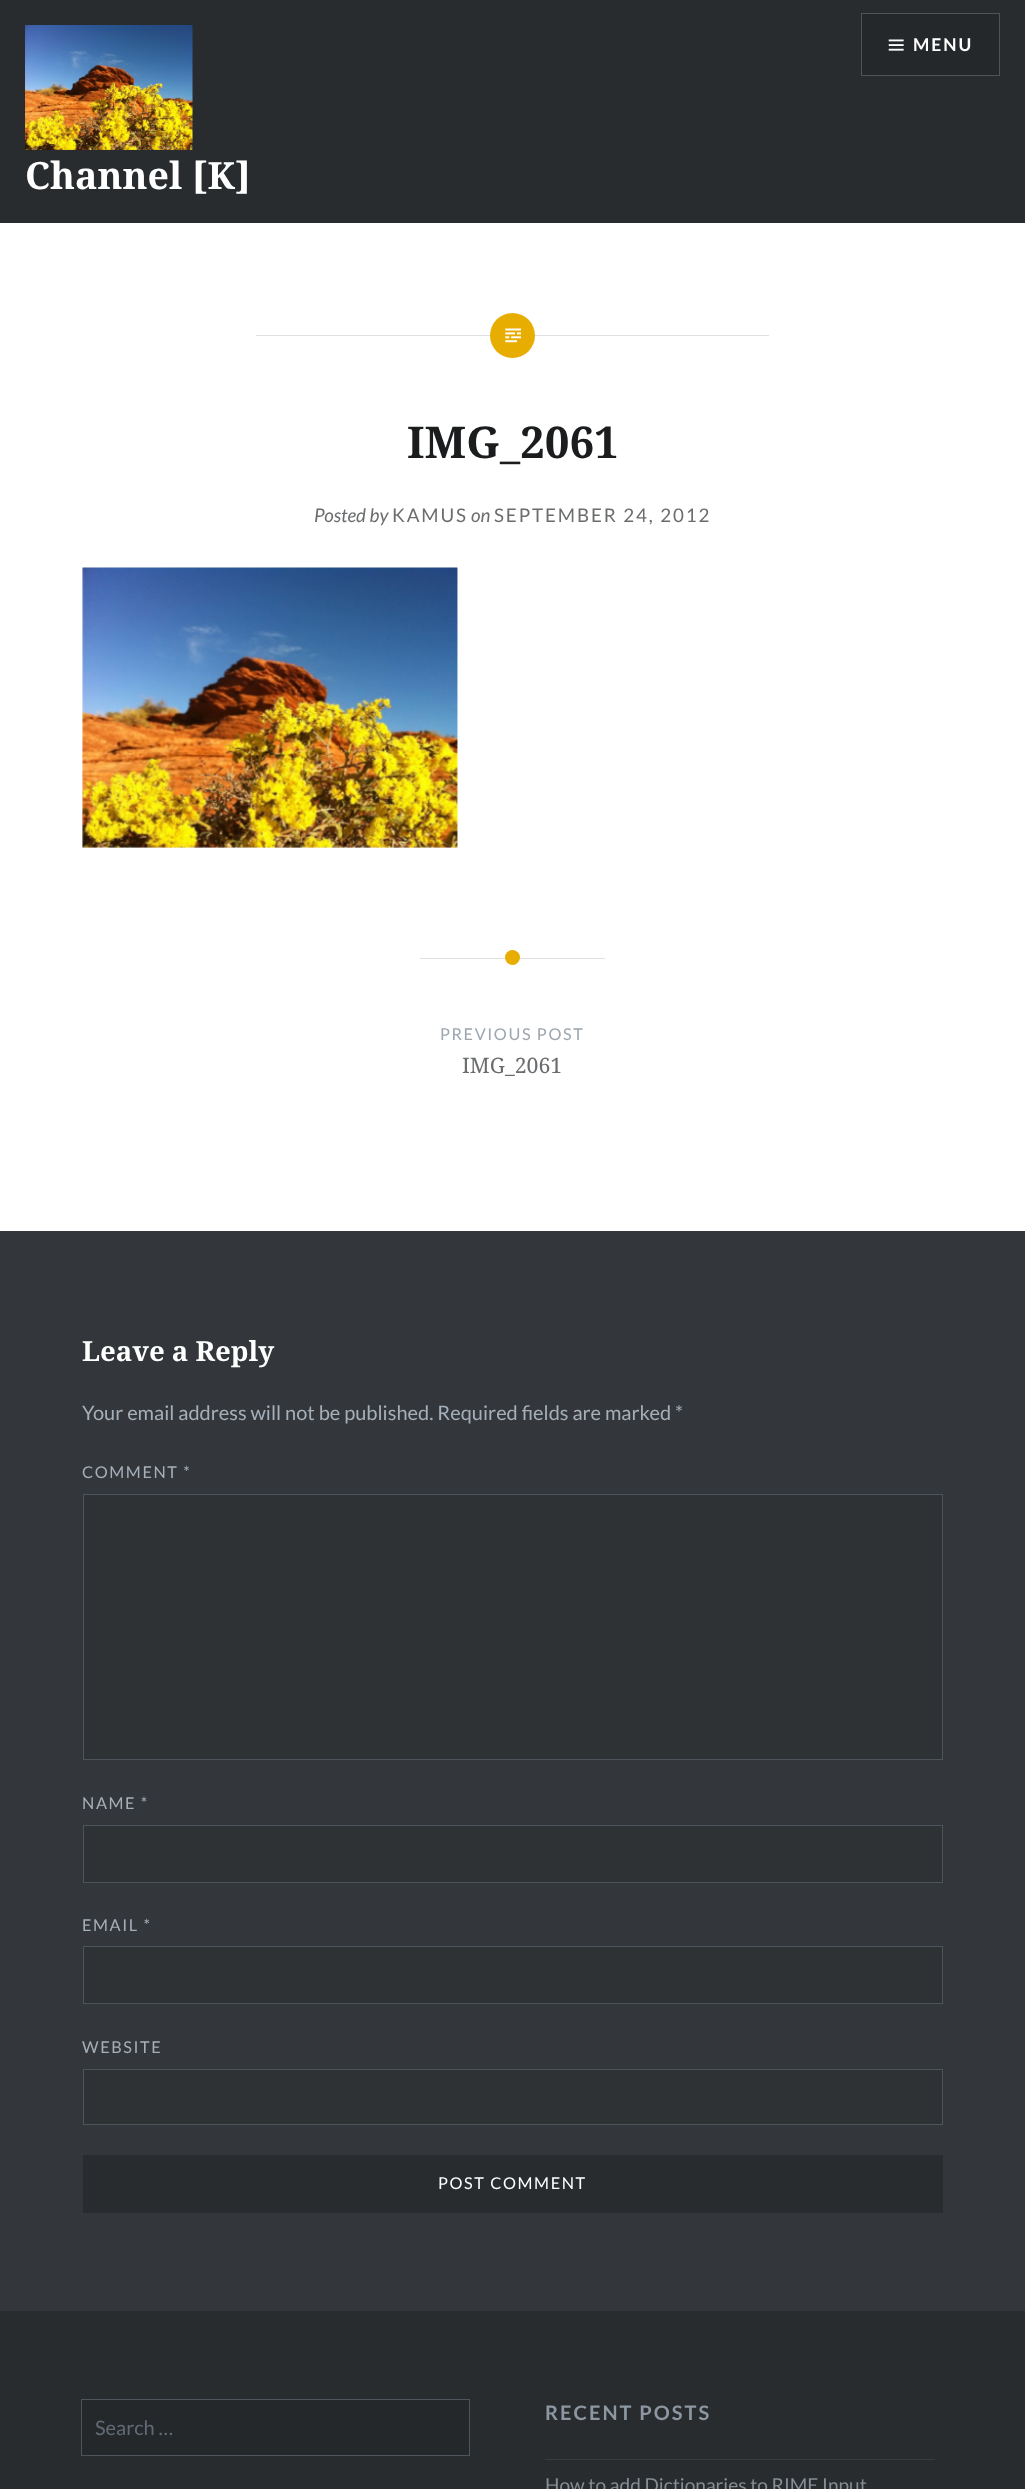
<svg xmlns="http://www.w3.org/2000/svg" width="1025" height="2489">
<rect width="100%" height="100%" fill="#fff"/>
<rect width="1025" height="223" fill="#292c2f"/>
<rect x="861.5" y="13.5" width="138" height="62" fill="#25282a" stroke="#515355"/>
<image x="888" y="39" width="16" height="12" href="media/1.png"/>
<text x="913" y="51" style="font-family:Lato;font-size:17.5px;font-weight:bold;letter-spacing:2px;fill:#fff">MENU</text>
<image x="25" y="25" width="168" height="125" href="media/2.png"/>
<text x="25" y="189" style="font-family:Noto Serif;font-size:37.5px;font-weight:bold;fill:#fff">Channel [K]</text>
<rect x="256" y="335" width="513" height="1" fill="#e0e0e0"/>
<circle cx="512.5" cy="335.5" r="22.5" fill="#e7ae01"/>
<image x="505" y="328" width="16" height="15" href="media/3.png"/>
<image x="82" y="567" width="376" height="281" href="media/4.png"/>
<text x="407" y="458" style="font-family:Noto Serif;font-size:43.75px;font-weight:bold;fill:#1a1c1e">IMG_2061</text>
<text x="314" y="522" style="font-family:Lato;font-size:18.75px;font-style:italic;fill:#6a6c6e">Posted by</text>
<text x="392" y="522" style="font-family:Lato;font-size:18.75px;letter-spacing:1.9px;fill:#6a6c6e">KAMUS</text>
<text x="471" y="522" style="font-family:Lato;font-size:18.75px;font-style:italic;fill:#6a6c6e">on</text>
<text x="494" y="522" style="font-family:Lato;font-size:18.75px;letter-spacing:1.9px;fill:#6a6c6e">SEPTEMBER 24, 2012</text>
<rect x="420" y="958" width="185" height="1" fill="#e0e0e0"/>
<circle cx="512.5" cy="957.5" r="7.5" fill="#e7ae01"/>
<text x="440" y="1040" style="font-family:Lato;font-size:16.25px;letter-spacing:1.6px;fill:#9da5ad">PREVIOUS POST</text>
<text x="462" y="1073" style="font-family:Noto Serif;font-size:21.25px;fill:#6a6c6e">IMG_2061</text>
<rect y="1231" width="1025" height="1080" fill="#33373b"/>
<text x="82" y="1361" style="font-family:Noto Serif;font-size:27.5px;font-weight:bold;fill:#fff">Leave a Reply</text>
<text x="82" y="1420" style="font-family:Lato;font-size:20px;fill:#a5afba">Your email address will not be published. Required fields are marked *</text>
<text x="82" y="1478" style="font-family:Lato;font-size:16.25px;letter-spacing:1.6px;fill:#a5afba">COMMENT *</text>
<rect x="83.5" y="1494.5" width="859" height="265" fill="#2e3235" stroke="#4d545b"/>
<text x="82" y="1809" style="font-family:Lato;font-size:16.25px;letter-spacing:1.6px;fill:#a5afba">NAME *</text>
<rect x="83.5" y="1825.5" width="859" height="57" fill="#2e3235" stroke="#4d545b"/>
<text x="82" y="1931" style="font-family:Lato;font-size:16.25px;letter-spacing:1.6px;fill:#a5afba">EMAIL *</text>
<rect x="83.5" y="1946.5" width="859" height="57" fill="#2e3235" stroke="#4d545b"/>
<text x="82" y="2053" style="font-family:Lato;font-size:16.25px;letter-spacing:1.6px;fill:#a5afba">WEBSITE</text>
<rect x="83.5" y="2069.5" width="859" height="55" fill="#2e3235" stroke="#4d545b"/>
<rect x="83" y="2155" width="860" height="58" fill="#292c2f"/>
<text x="438" y="2189" style="font-family:Lato;font-size:16.25px;letter-spacing:1.6px;fill:#fff">POST COMMENT</text>
<rect y="2311" width="1025" height="178" fill="#292c2f"/>
<rect x="81.5" y="2399.5" width="388" height="56" fill="#25282a" stroke="#4d545b"/>
<text x="95" y="2435" style="font-family:Lato;font-size:20px;fill:#616a74">Search …</text>
<text x="545" y="2420" style="font-family:Lato;font-size:20px;font-weight:bold;letter-spacing:2px;fill:#8c97a2">RECENT POSTS</text>
<rect x="545" y="2459" width="390" height="1" fill="#363b40"/>
<text x="545" y="2492" style="font-family:Lato;font-size:19.1px;fill:#858d95">How to add Dictionaries to RIME Input</text>
</svg>
